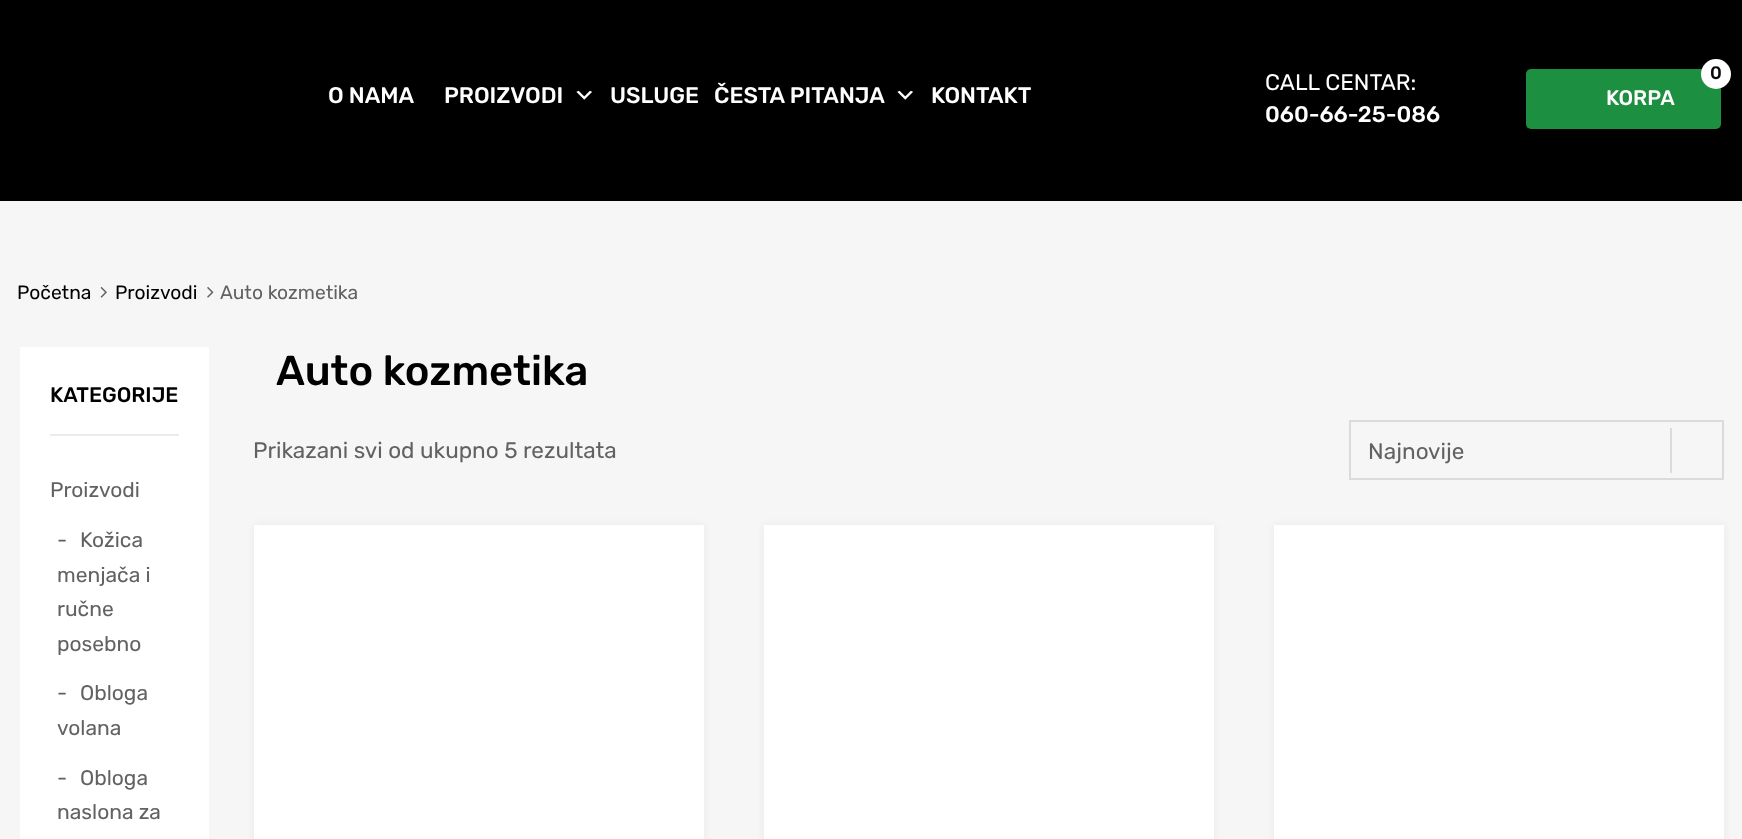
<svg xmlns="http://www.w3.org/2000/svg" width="1742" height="839">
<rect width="100%" height="100%" fill="#f6f6f6"/>
<rect width="1742" height="201" fill="#000"/>
<text x="328" y="103" style="font-family:Rubik;font-size:22.5px;font-weight:500;fill:#fff">O NAMA</text>
<text x="444" y="103" style="font-family:Rubik;font-size:22.5px;font-weight:500;fill:#fff">PROIZVODI</text>
<image x="576" y="90" width="16" height="10" href="media/1.png"/>
<text x="610" y="103" style="font-family:Rubik;font-size:22.5px;font-weight:500;fill:#fff">USLUGE</text>
<text x="714" y="103" style="font-family:Rubik;font-size:22.5px;font-weight:500;fill:#fff">ČESTA PITANJA</text>
<image x="897" y="90" width="16" height="10" href="media/1.png"/>
<text x="931" y="103" style="font-family:Rubik;font-size:22.5px;font-weight:500;fill:#fff">KONTAKT</text>
<text x="1265" y="90" style="font-family:Rubik;font-size:22.5px;fill:#fff">CALL CENTAR:</text>
<text x="1265" y="122" style="font-family:Rubik;font-size:22.5px;font-weight:500;fill:#fff">060-66-25-086</text>
<rect x="1526" y="69" width="195" height="60" rx="5" fill="#1c9040"/>
<circle cx="1716" cy="74" r="15" fill="#fff"/>
<text x="1710" y="79" style="font-family:Rubik;font-size:18px;font-weight:500;fill:#090909">0</text>
<text x="1606" y="105" style="font-family:Rubik;font-size:21px;font-weight:500;fill:#fff">KORPA</text>
<text x="17" y="299" style="font-family:Rubik;font-size:19.25px;fill:#000">Početna</text>
<image x="100" y="287" width="7" height="11" href="media/2.png"/>
<text x="115" y="299" style="font-family:Rubik;font-size:19.25px;fill:#000">Proizvodi</text>
<image x="207" y="287" width="7" height="11" href="media/3.png"/>
<text x="220" y="299" style="font-family:Rubik;font-size:19.25px;fill:#626262">Auto kozmetika</text>
<rect x="20" y="347" width="189" height="492" fill="#fff"/>
<rect x="50" y="434" width="129" height="2" fill="#ebebeb"/>
<text x="50" y="402" style="font-family:Rubik;font-size:21px;font-weight:500;fill:#000">KATEGORIJE</text>
<text x="50" y="497" style="font-family:Rubik;font-size:21px;fill:#626262">Proizvodi</text>
<text x="57" y="547" style="font-family:Rubik;font-size:21px;fill:#626262">-</text>
<text x="80" y="547" style="font-family:Rubik;font-size:21px;fill:#626262">Kožica</text>
<text x="57" y="582" style="font-family:Rubik;font-size:21px;fill:#626262">menjača i</text>
<text x="57" y="616" style="font-family:Rubik;font-size:21px;fill:#626262">ručne</text>
<text x="57" y="651" style="font-family:Rubik;font-size:21px;fill:#626262">posebno</text>
<text x="57" y="700" style="font-family:Rubik;font-size:21px;fill:#626262">-</text>
<text x="80" y="700" style="font-family:Rubik;font-size:21px;fill:#626262">Obloga</text>
<text x="57" y="735" style="font-family:Rubik;font-size:21px;fill:#626262">volana</text>
<text x="57" y="785" style="font-family:Rubik;font-size:21px;fill:#626262">-</text>
<text x="80" y="785" style="font-family:Rubik;font-size:21px;fill:#626262">Obloga</text>
<text x="57" y="819" style="font-family:Rubik;font-size:21px;fill:#626262">naslona za</text>
<text x="276" y="385" style="font-family:Rubik;font-size:41.75px;font-weight:500;fill:#000">Auto kozmetika</text>
<text x="253" y="458" style="font-family:Rubik;font-size:22.5px;fill:#626262">Prikazani svi od ukupno 5 rezultata</text>
<rect x="1670" y="428" width="2" height="45" fill="#dbdbdb"/>
<rect x="1350" y="421" width="373" height="58" fill="none" stroke="#dbdbdb" stroke-width="2"/>
<text x="1368" y="459" style="font-family:Rubik;font-size:22.5px;fill:#626262">Najnovije</text>
<rect x="254" y="525" width="450" height="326" fill="#0000000d" filter="blur(4px)"/>
<rect x="254" y="525" width="450" height="314" fill="#fff"/>
<rect x="764" y="525" width="450" height="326" fill="#0000000d" filter="blur(4px)"/>
<rect x="764" y="525" width="450" height="314" fill="#fff"/>
<rect x="1274" y="525" width="450" height="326" fill="#0000000d" filter="blur(4px)"/>
<rect x="1274" y="525" width="450" height="314" fill="#fff"/>
</svg>
